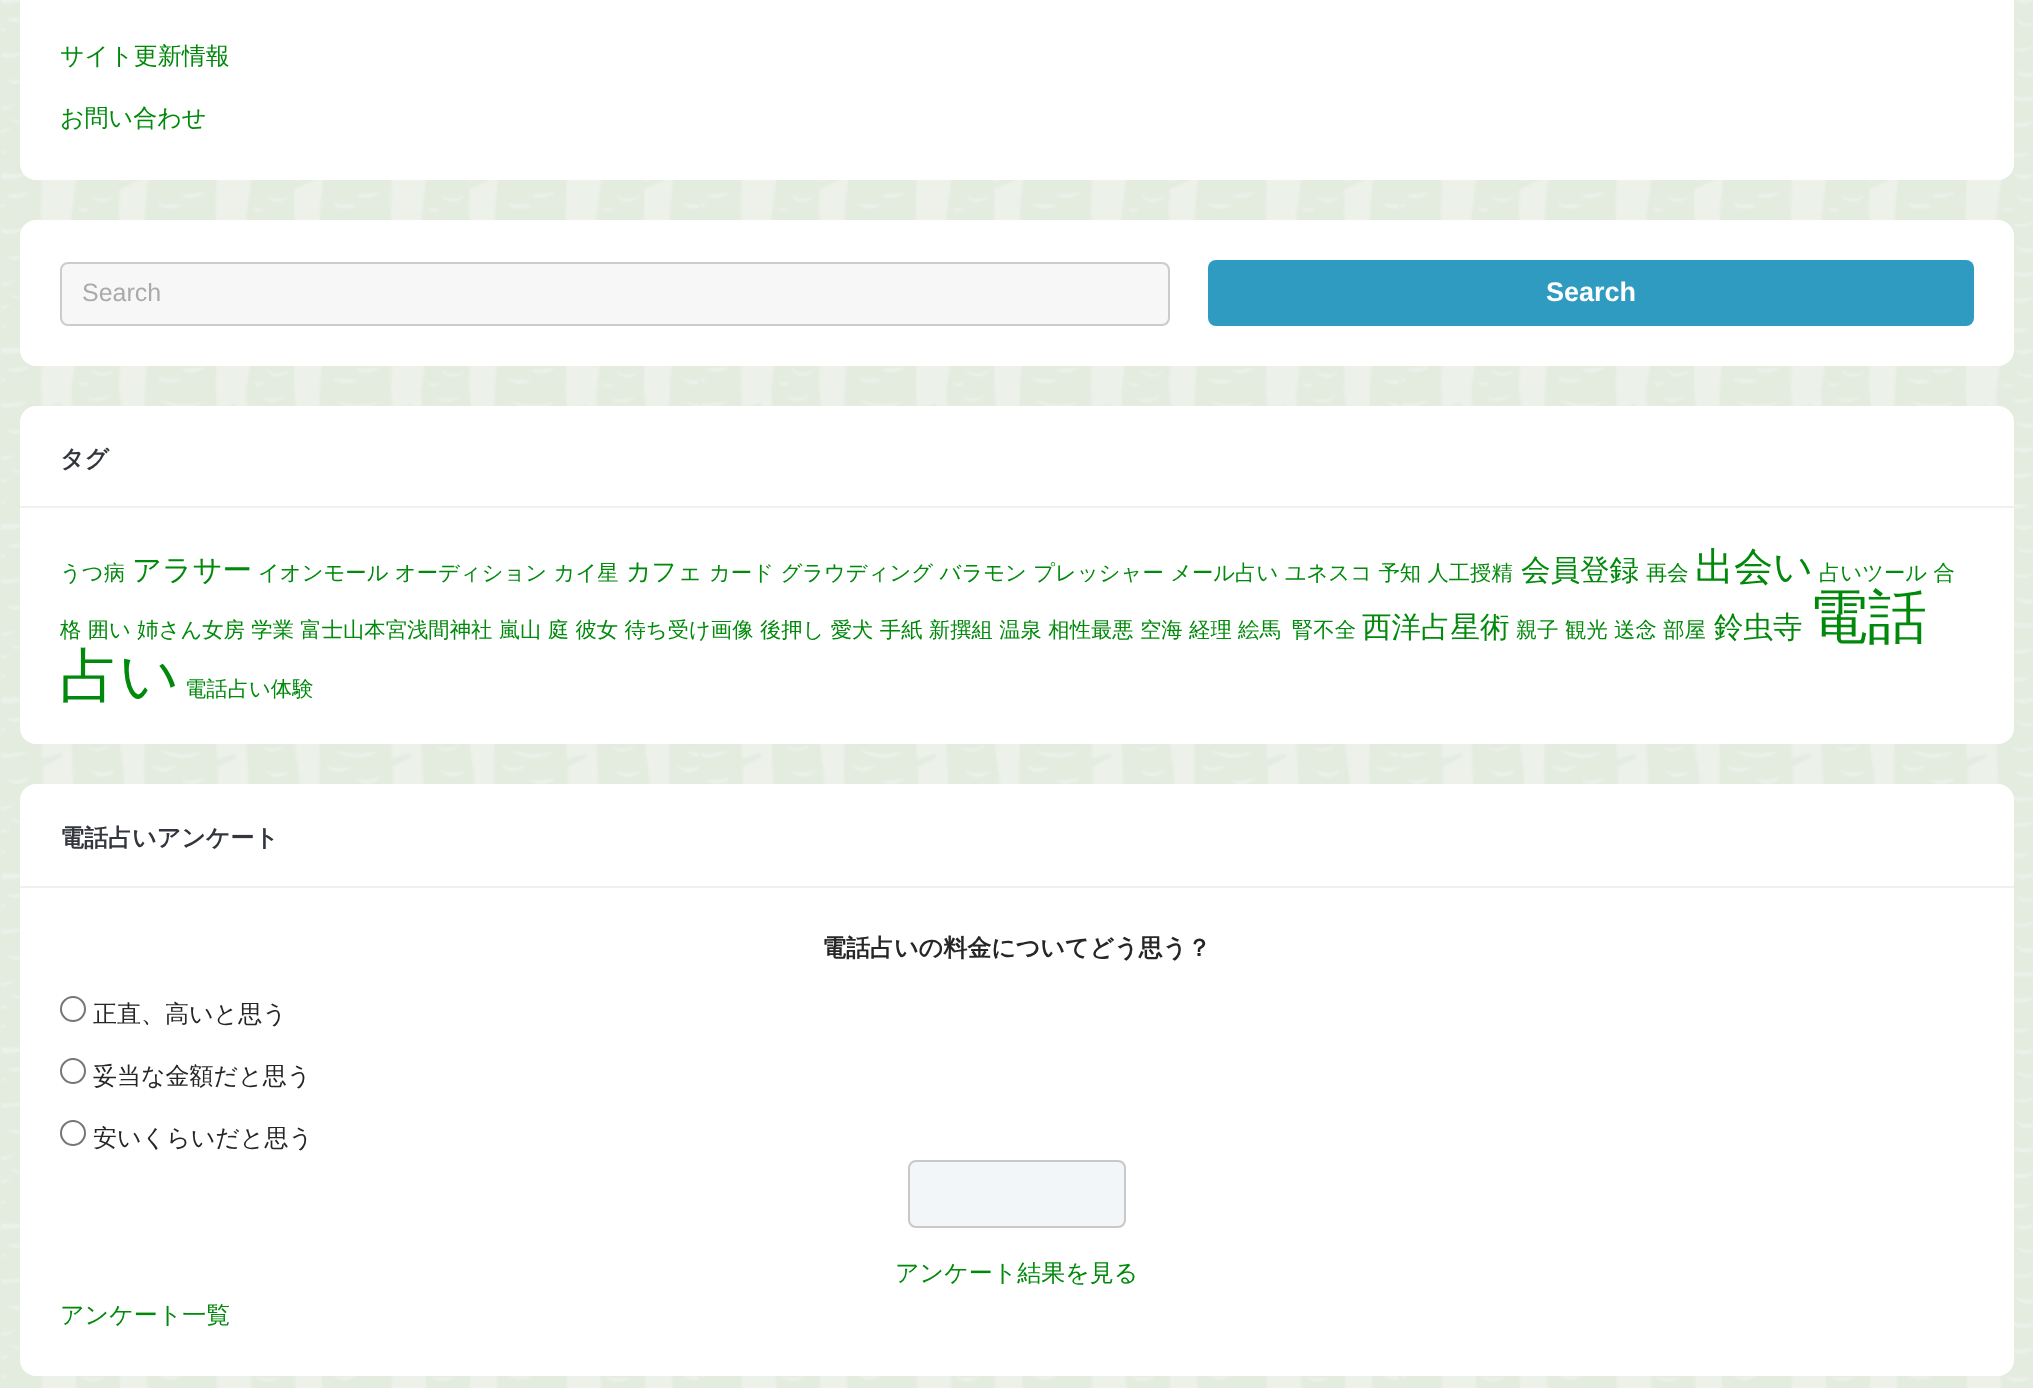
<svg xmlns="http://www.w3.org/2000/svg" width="2033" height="1388">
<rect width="100%" height="100%" fill="#fff"/>
<image x="0" y="0" width="2033" height="1388" href="media/1.png"/>
<rect x="20" y="-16" width="1994" height="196" rx="16" fill="#fff"/>
<text x="60" y="64" style="font-family:WenQuanYi Zen Hei;font-size:24px;font-weight:500;fill:#00890b">サイト更新情報</text>
<text x="60" y="126" style="font-family:WenQuanYi Zen Hei;font-size:24px;font-weight:500;fill:#00890b">お問い合わせ</text>
<rect x="20" y="220" width="1994" height="146" rx="16" fill="#fff"/>
<rect x="61" y="263" width="1108" height="62" rx="7" fill="#f7f7f7" stroke="#ccc" stroke-width="2"/>
<text x="82" y="301" style="font-family:Liberation Sans;font-size:25px;fill:#aaa">Search</text>
<rect x="1208" y="260" width="766" height="66" rx="8" fill="#2f9bc1"/>
<text x="1546" y="301" style="font-family:Liberation Sans;font-size:27px;font-weight:bold;fill:#fff">Search</text>
<rect x="20" y="406" width="1994" height="338" rx="16" fill="#fff"/>
<rect x="20" y="506" width="1994" height="2" fill="#f0f0ed"/>
<text x="60" y="467" style="font-family:WenQuanYi Zen Hei;font-size:24px;font-weight:bold;fill:#33363c">タグ</text>
<text x="60" y="580" style="font-family:WenQuanYi Zen Hei;font-size:21.33px;font-weight:500;fill:#00890b">うつ病</text>
<text x="132" y="580" style="font-family:WenQuanYi Zen Hei;font-size:29.5px;font-weight:500;fill:#00890b">アラサー</text>
<text x="258" y="580" style="font-family:WenQuanYi Zen Hei;font-size:21.33px;font-weight:500;fill:#00890b">イオンモール オーディション カイ星</text>
<text x="626" y="580" style="font-family:WenQuanYi Zen Hei;font-size:25px;font-weight:500;fill:#00890b">カフェ</text>
<text x="709" y="580" style="font-family:WenQuanYi Zen Hei;font-size:21.33px;font-weight:500;fill:#00890b">カード グラウディング バラモン プレッシャー メール占い ユネスコ 予知 人工授精</text>
<text x="1521" y="580" style="font-family:WenQuanYi Zen Hei;font-size:29.5px;font-weight:500;fill:#00890b">会員登録</text>
<text x="1646" y="580" style="font-family:WenQuanYi Zen Hei;font-size:21.33px;font-weight:500;fill:#00890b">再会</text>
<text x="1695" y="580" style="font-family:WenQuanYi Zen Hei;font-size:39px;font-weight:500;fill:#00890b">出会い</text>
<text x="1819" y="580" style="font-family:WenQuanYi Zen Hei;font-size:21.33px;font-weight:500;fill:#00890b">占いツール 合</text>
<text x="60" y="637" style="font-family:WenQuanYi Zen Hei;font-size:21.33px;font-weight:500;fill:#00890b">格 囲い 姉さん女房 学業 富士山本宮浅間神社 嵐山 庭 彼女 待ち受け画像 後押し 愛犬 手紙 新撰組 温泉 相性最悪 空海 経理 絵馬</text>
<text x="1292" y="637" style="font-family:WenQuanYi Zen Hei;font-size:21.33px;font-weight:500;fill:#00890b">腎不全</text>
<text x="1362" y="637" style="font-family:WenQuanYi Zen Hei;font-size:29.5px;font-weight:500;fill:#00890b">西洋占星術</text>
<text x="1516" y="637" style="font-family:WenQuanYi Zen Hei;font-size:21.33px;font-weight:500;fill:#00890b">親子 観光 送念 部屋</text>
<text x="1714" y="637" style="font-family:WenQuanYi Zen Hei;font-size:29.5px;font-weight:500;fill:#00890b">鈴虫寺</text>
<text x="1809" y="637" style="font-family:WenQuanYi Zen Hei;font-size:59px;font-weight:500;fill:#00890b">電話</text>
<text x="60" y="696" style="font-family:WenQuanYi Zen Hei;font-size:59px;font-weight:500;fill:#00890b">占い</text>
<text x="185" y="696" style="font-family:WenQuanYi Zen Hei;font-size:21.33px;font-weight:500;fill:#00890b">電話占い体験</text>
<rect x="20" y="784" width="1994" height="592" rx="16" fill="#fff"/>
<rect x="20" y="886" width="1994" height="2" fill="#f0f0ed"/>
<text x="60" y="846" style="font-family:WenQuanYi Zen Hei;font-size:24px;font-weight:bold;fill:#33363c">電話占いアンケート</text>
<text x="822" y="956" style="font-family:WenQuanYi Zen Hei;font-size:24px;font-weight:bold;fill:#262626">電話占いの料金についてどう思う？</text>
<circle cx="73" cy="1009" r="12" fill="none" stroke="#767676" stroke-width="2"/>
<text x="93" y="1022" style="font-family:WenQuanYi Zen Hei;font-size:24px;font-weight:500;fill:#262626">正直、高いと思う</text>
<circle cx="73" cy="1071" r="12" fill="none" stroke="#767676" stroke-width="2"/>
<text x="93" y="1084" style="font-family:WenQuanYi Zen Hei;font-size:24px;font-weight:500;fill:#262626">妥当な金額だと思う</text>
<circle cx="73" cy="1133" r="12" fill="none" stroke="#767676" stroke-width="2"/>
<text x="93" y="1146" style="font-family:WenQuanYi Zen Hei;font-size:24px;font-weight:500;fill:#262626">安いくらいだと思う</text>
<rect x="909" y="1161" width="216" height="66" rx="7" fill="#f3f6f8" stroke="#c8c8c8" stroke-width="2"/>
<text x="895" y="1281" style="font-family:WenQuanYi Zen Hei;font-size:24px;font-weight:500;fill:#00890b">アンケート結果を見る</text>
<text x="60" y="1323" style="font-family:WenQuanYi Zen Hei;font-size:24px;font-weight:500;fill:#00890b">アンケート一覧</text>
</svg>
